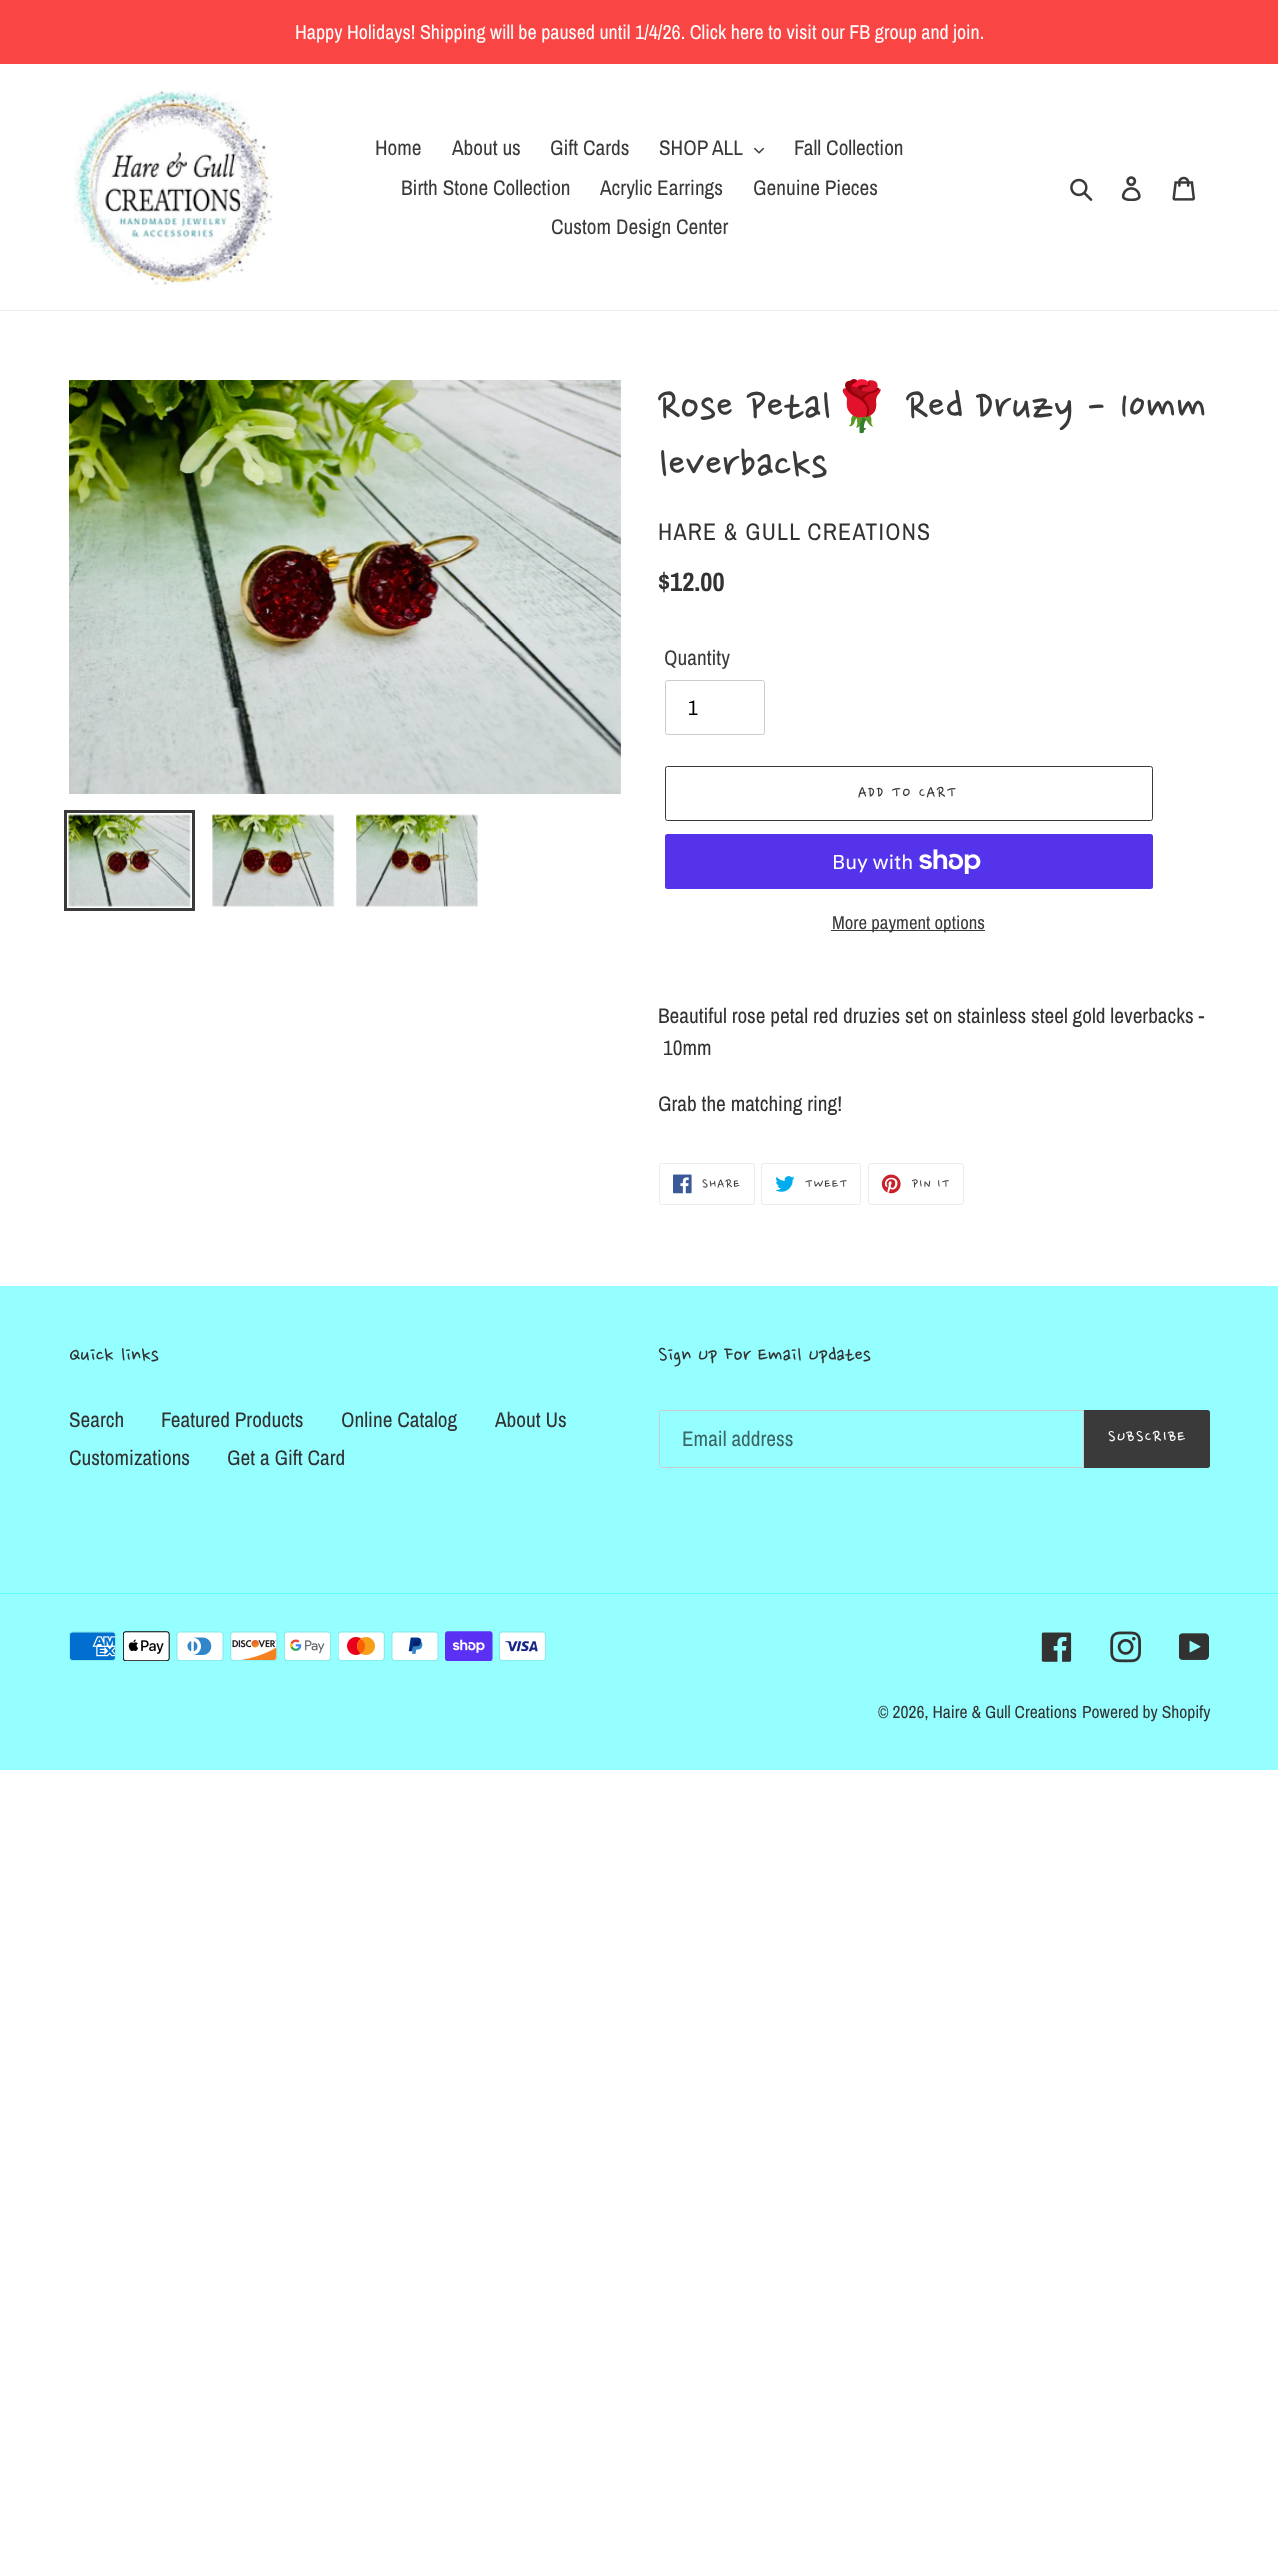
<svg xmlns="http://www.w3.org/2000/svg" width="1278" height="2563">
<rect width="100%" height="100%" fill="#fff"/>
<rect width="1278" height="64" fill="#fa4545"/>
<text x="295" y="39" style="font-family:Archivo Narrow;font-size:20px;fill:#fff">Happy Holidays! Shipping will be paused until 1/4/26. Click here to visit our FB group and join.</text>
<rect y="310" width="1278" height="1" fill="#ebebeb"/>
<image x="74" y="90" width="199" height="195" href="media/1.png"/>
<text x="375" y="155" style="font-family:Archivo Narrow;font-size:21.25px;fill:#3a3a3a">Home</text>
<text x="452" y="155" style="font-family:Archivo Narrow;font-size:21.25px;fill:#3a3a3a">About us</text>
<text x="550" y="155" style="font-family:Archivo Narrow;font-size:21.25px;fill:#3a3a3a">Gift Cards</text>
<text x="659" y="155" style="font-family:Archivo Narrow;font-size:21.25px;fill:#3a3a3a">SHOP ALL</text>
<image x="754" y="147" width="10" height="7" href="media/2.png"/>
<text x="794" y="155" style="font-family:Archivo Narrow;font-size:21.25px;fill:#3a3a3a">Fall Collection</text>
<text x="401" y="195" style="font-family:Archivo Narrow;font-size:21.25px;fill:#3a3a3a">Birth Stone Collection</text>
<text x="600" y="195" style="font-family:Archivo Narrow;font-size:21.25px;fill:#3a3a3a">Acrylic Earrings</text>
<text x="753" y="195" style="font-family:Archivo Narrow;font-size:21.25px;fill:#3a3a3a">Genuine Pieces</text>
<text x="551" y="234" style="font-family:Archivo Narrow;font-size:21.25px;fill:#3a3a3a">Custom Design Center</text>
<image x="1070" y="178" width="23" height="23" href="media/3.png"/>
<image x="1121" y="176" width="20" height="25" href="media/4.png"/>
<image x="1172" y="176" width="23" height="25" href="media/5.png"/>
<image x="69" y="380" width="552" height="414" href="media/6.png"/>
<rect x="65.5" y="811.5" width="128" height="98" fill="none" stroke="#3a3a3a" stroke-width="3"/>
<image x="68" y="814" width="123" height="93" href="media/7.png"/>
<image x="212" y="814" width="123" height="93" href="media/8.png"/>
<image x="356" y="814" width="123" height="93" href="media/9.png"/>
<text x="658" y="423" style="font-family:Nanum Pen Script;font-size:48.75px;fill:#3a3a3a">Rose Petal</text>
<text x="831" y="423" style="font-family:Noto Color Emoji;font-size:48.75px;fill:#3a3a3a">🌹</text>
<text x="906" y="423" style="font-family:Nanum Pen Script;font-size:48.75px;fill:#3a3a3a">Red Druzy - 10mm</text>
<text x="658" y="481" style="font-family:Nanum Pen Script;font-size:48.75px;fill:#3a3a3a">leverbacks</text>
<text x="658" y="540" style="font-family:Archivo Narrow;font-size:23.9px;letter-spacing:1.25px;fill:#333232">HARE &amp; GULL CREATIONS</text>
<text x="658" y="591" style="font-family:Archivo Narrow;font-size:26.5px;font-weight:bold;fill:#333232">$12.00</text>
<text x="664" y="665" style="font-family:Archivo Narrow;font-size:21.25px;fill:#3a3a3a">Quantity</text>
<rect x="665.5" y="680.5" width="99" height="54" rx="2" fill="none" stroke="#ccc"/>
<text x="688" y="715" style="font-family:Archivo Narrow;font-size:21.25px;fill:#000">1</text>
<rect x="665.5" y="766.5" width="487" height="54" rx="2" fill="none" stroke="#3a3a3a"/>
<text x="858" y="799" style="font-family:Nanum Pen Script;font-size:18.75px;letter-spacing:1.5px;fill:#3a3a3a">ADD TO CART</text>
<rect x="665" y="834" width="488" height="55" rx="2.5" fill="#5433eb"/>
<text x="832" y="869" style="font-family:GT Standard;font-size:20px;fill:#fff">Buy with</text>
<image x="919" y="849" width="62" height="25" href="media/10.png"/>
<rect x="831" y="930" width="154" height="1" fill="#3a3a3a"/>
<text x="832" y="929" style="font-family:Archivo Narrow;font-size:18.75px;fill:#3a3a3a">More payment options</text>
<text x="658" y="1023" style="font-family:Archivo Narrow;font-size:21.25px;fill:#333232">Beautiful rose petal red druzies set on stainless steel gold leverbacks -</text>
<text x="663" y="1055" style="font-family:Archivo Narrow;font-size:21.25px;fill:#333232">10mm</text>
<text x="658" y="1111" style="font-family:Archivo Narrow;font-size:21.25px;fill:#333232">Grab the matching ring!</text>
<rect x="659.5" y="1163.5" width="95" height="41" rx="2" fill="none" stroke="#ebebeb"/>
<image x="673" y="1174" width="19" height="20" href="media/11.png"/>
<text x="702" y="1189" style="font-family:Nanum Pen Script;font-size:15px;letter-spacing:1.25px;fill:#3a3a3a">SHARE</text>
<rect x="761.5" y="1163.5" width="99" height="41" rx="2" fill="none" stroke="#ebebeb"/>
<image x="775" y="1176" width="20" height="16" href="media/12.png"/>
<text x="805" y="1189" style="font-family:Nanum Pen Script;font-size:15px;letter-spacing:1.25px;fill:#3a3a3a">TWEET</text>
<rect x="868.5" y="1163.5" width="95" height="41" rx="2" fill="none" stroke="#ebebeb"/>
<image x="881" y="1174" width="20" height="20" href="media/13.png"/>
<text x="912" y="1189" style="font-family:Nanum Pen Script;font-size:15px;letter-spacing:1.25px;fill:#3a3a3a">PIN IT</text>
<rect y="1286" width="1278" height="484" fill="#95ffff"/>
<text x="69" y="1363" style="font-family:Nanum Pen Script;font-size:23.75px;fill:#333232">Quick links</text>
<text x="69" y="1427" style="font-family:Archivo Narrow;font-size:21.25px;fill:#333232">Search</text>
<text x="161" y="1427" style="font-family:Archivo Narrow;font-size:21.25px;fill:#333232">Featured Products</text>
<text x="341" y="1427" style="font-family:Archivo Narrow;font-size:21.25px;fill:#333232">Online Catalog</text>
<text x="495" y="1427" style="font-family:Archivo Narrow;font-size:21.25px;fill:#333232">About Us</text>
<text x="69" y="1465" style="font-family:Archivo Narrow;font-size:21.25px;fill:#333232">Customizations</text>
<text x="227" y="1465" style="font-family:Archivo Narrow;font-size:21.25px;fill:#333232">Get a Gift Card</text>
<text x="658" y="1363" style="font-family:Nanum Pen Script;font-size:23.75px;fill:#333232">Sign Up For Email Updates</text>
<path d="M661.5 1410.5h422v57h-422c-1 0-2-1-2-2v-53c0-1 1-2 2-2z" fill="none" stroke="#ccc"/>
<text x="682" y="1446" style="font-family:Archivo Narrow;font-size:21.25px;fill:#3c6666">Email address</text>
<path d="M1084 1410h123.5c1.5 0 2.5 1 2.5 2.5v53c0 1.5-1 2.5-2.5 2.5h-123.5z" fill="#3a3a3a"/>
<text x="1108" y="1443" style="font-family:Nanum Pen Script;font-size:18.75px;letter-spacing:1.5px;fill:#fff">SUBSCRIBE</text>
<rect y="1593" width="1278" height="1" fill="#62ffff"/>
<image x="69" y="1631" width="47" height="30" href="media/14.png"/>
<image x="123" y="1631" width="47" height="30" href="media/15.png"/>
<image x="176" y="1631" width="48" height="30" href="media/16.png"/>
<image x="230" y="1631" width="48" height="30" href="media/17.png"/>
<image x="284" y="1631" width="47" height="30" href="media/18.png"/>
<image x="338" y="1631" width="47" height="30" href="media/19.png"/>
<image x="391" y="1631" width="48" height="30" href="media/20.png"/>
<image x="445" y="1631" width="48" height="30" href="media/21.png"/>
<image x="499" y="1631" width="47" height="30" href="media/22.png"/>
<image x="1041" y="1632" width="31" height="30" href="media/23.png"/>
<image x="1110" y="1631" width="31" height="32" href="media/24.png"/>
<image x="1179" y="1633" width="30" height="27" href="media/25.png"/>
<text x="878" y="1718" style="font-family:Archivo Narrow;font-size:17.5px;fill:#333232">© 2026, Haire &amp; Gull Creations</text>
<text x="1082" y="1718" style="font-family:Archivo Narrow;font-size:17.5px;fill:#333232">Powered by Shopify</text>
</svg>
